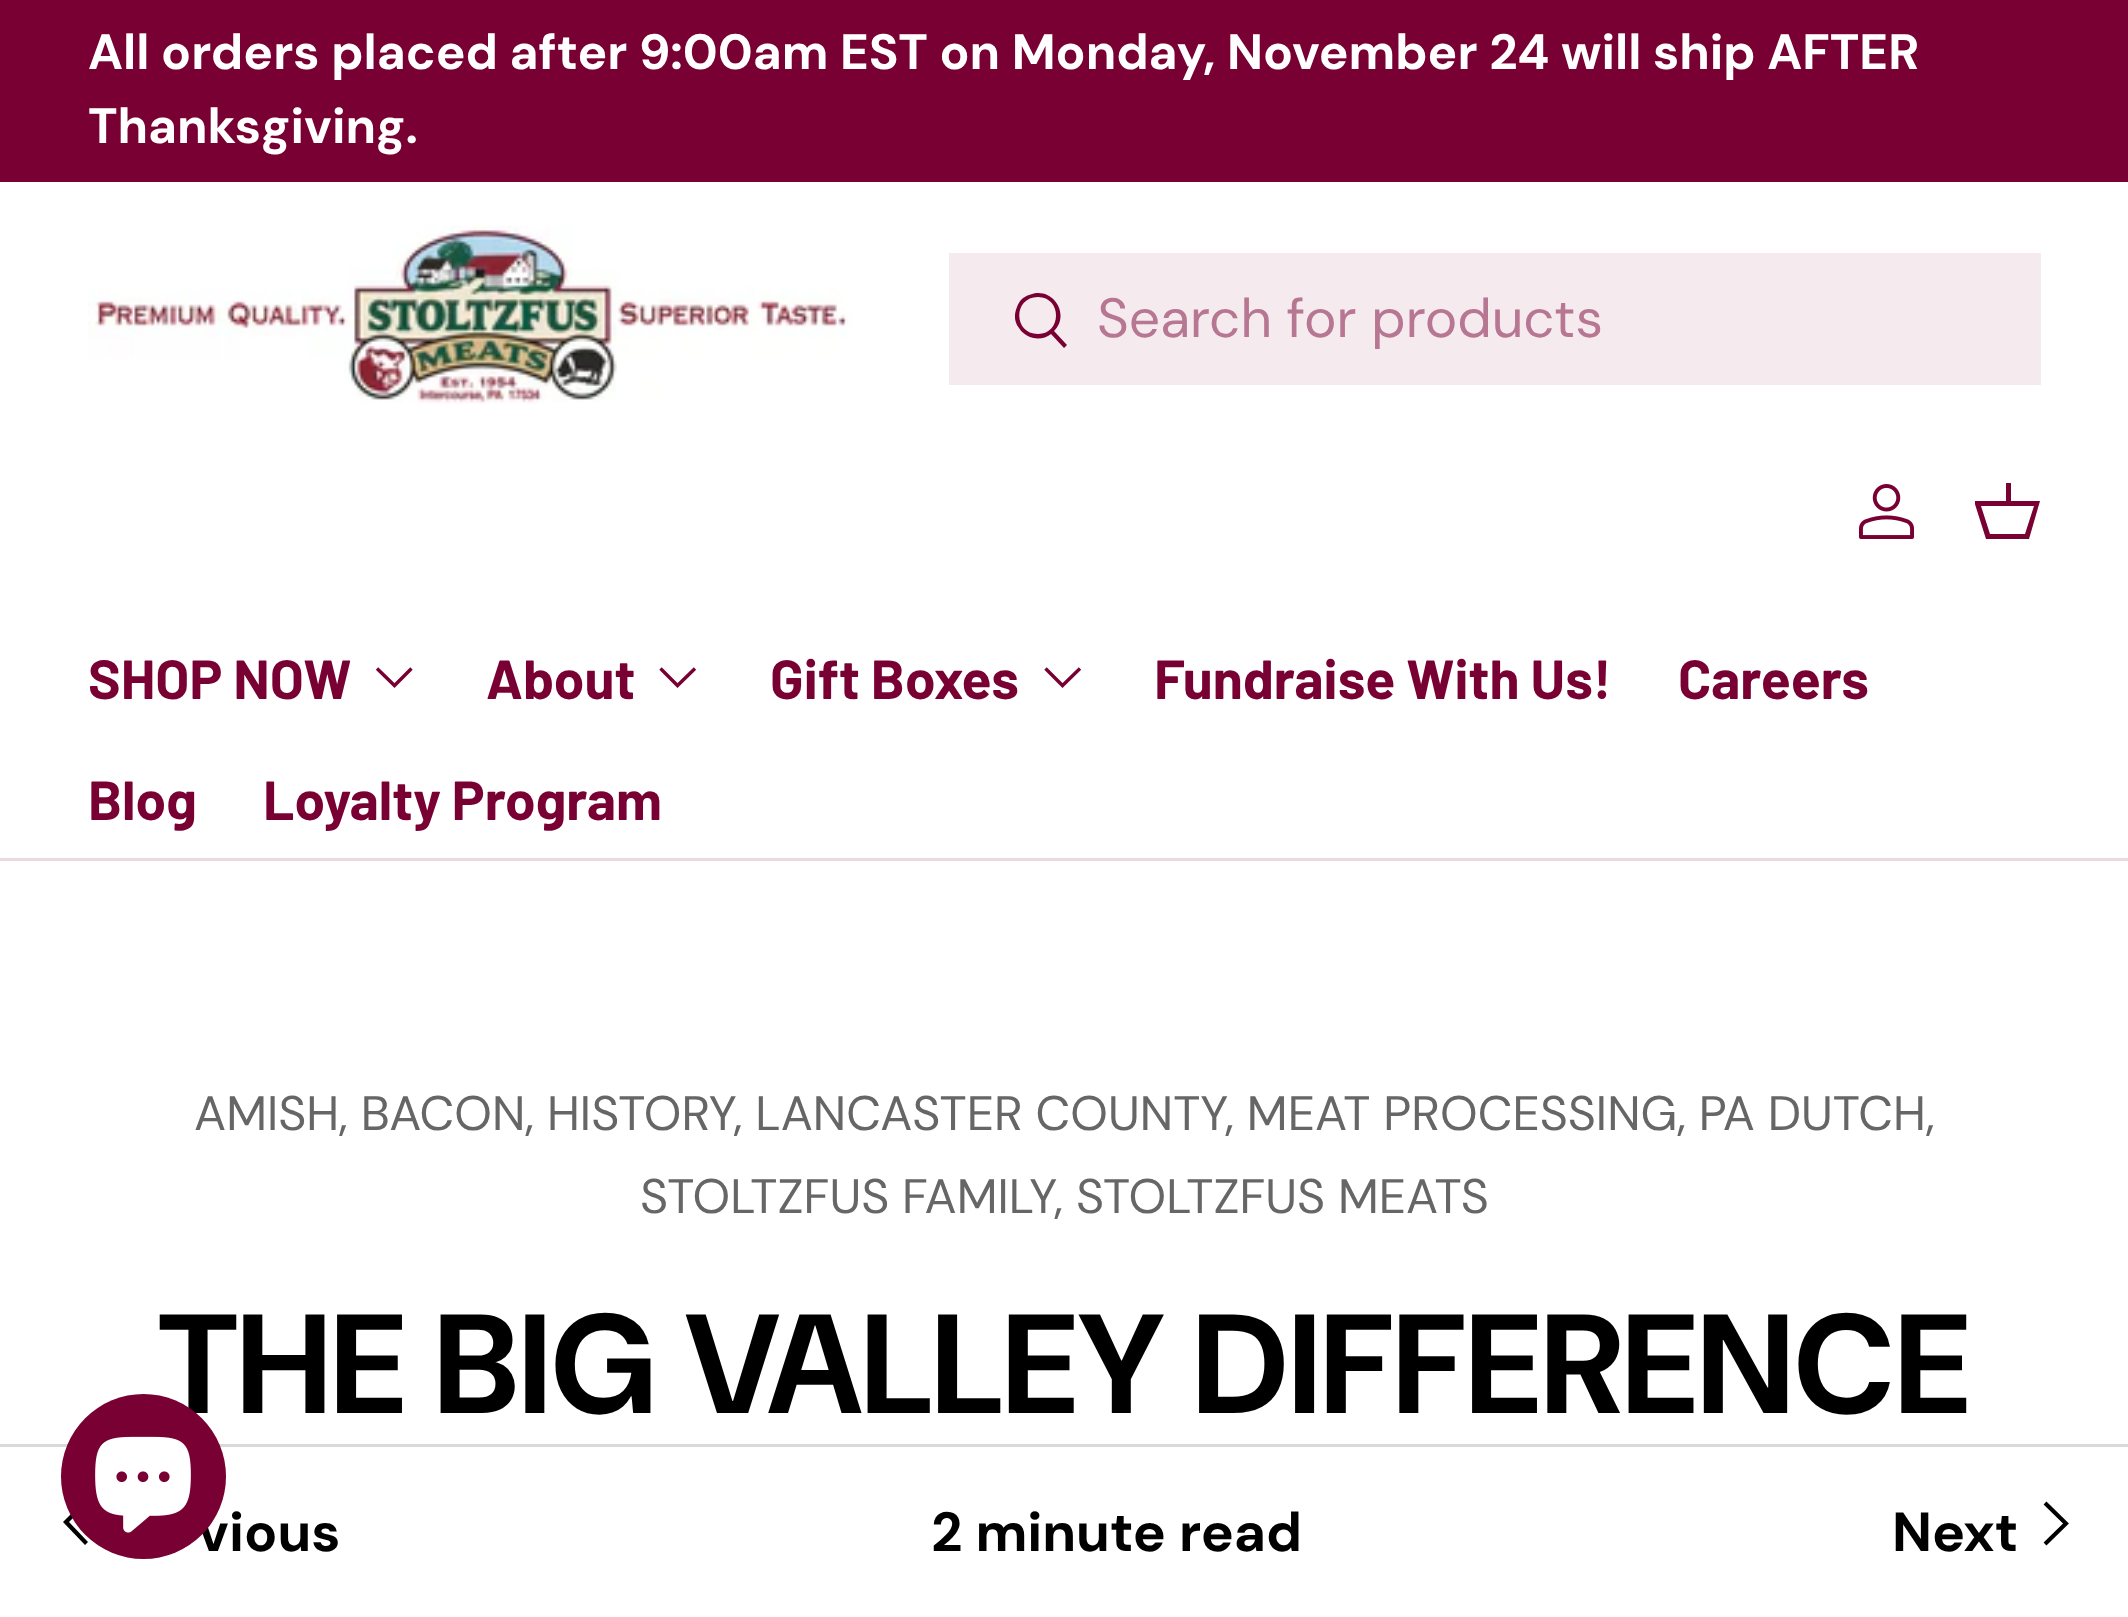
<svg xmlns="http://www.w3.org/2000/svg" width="2128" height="1617">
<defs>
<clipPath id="clip1"><rect x="1975" y="479" width="66" height="66"/></clipPath>
</defs>
<rect width="100%" height="100%" fill="#fff"/>
<rect width="2128" height="182" fill="#780032"/>
<text x="88" y="69" style="font-family:'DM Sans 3';font-size:49.5px;font-weight:bold;fill:#fff">All orders placed after 9:00am EST on Monday, November 24 will ship AFTER</text>
<text x="88" y="143" style="font-family:'DM Sans 3';font-size:49.5px;font-weight:bold;fill:#fff">Thanksgiving.</text>
<rect y="858" width="2128" height="3" fill="#ebd9e0"/>
<image x="88" y="225" width="764" height="179" href="media/1.png"/>
<rect x="949" y="253" width="1092" height="132" fill="#f5ebef"/>
<path d="M1054 331l13 14l-3 3l-13-14c-10 8-25 5-32-6c-5-6-5-14-2-21c2-6 6-10 12-12c23-10 42 19 25 36zm-16 3c24 0 24-37 0-37c-25 0-25 37 0 37z" fill="#780032"/>
<text x="1097" y="337" style="font-family:'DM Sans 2';font-size:55px;fill:#b77691">Search for products</text>
<image x="1859" y="484" width="55" height="55" href="media/2.png"/>
<g clip-path="url(#clip1)">
<path d="M2006 501v-18h5v18h29l-11 38h-43l-12-38zm-25 5l9 28h35l9-28z" fill="#780032"/>
</g>
<text x="88" y="699" style="font-family:Barlow;font-size:55px;font-weight:bold;fill:#780032">SHOP NOW</text>
<path d="M411.5 668.5l-17 17l-17.5-17" fill="none" stroke="#780032" stroke-width="3.4"/>
<text x="486" y="699" style="font-family:Barlow;font-size:55px;font-weight:bold;fill:#780032">About</text>
<path d="M695 668.5l-17.5 17l-17-17" fill="none" stroke="#780032" stroke-width="3.4"/>
<text x="770" y="699" style="font-family:Barlow;font-size:55px;font-weight:bold;fill:#780032">Gift Boxes</text>
<path d="M1080 668.5l-17.5 17l-17-17" fill="none" stroke="#780032" stroke-width="3.4"/>
<text x="1154" y="699" style="font-family:Barlow;font-size:55px;font-weight:bold;fill:#780032">Fundraise With Us!</text>
<text x="1678" y="699" style="font-family:Barlow;font-size:55px;font-weight:bold;fill:#780032">Careers</text>
<text x="88" y="820" style="font-family:Barlow;font-size:55px;font-weight:bold;fill:#780032">Blog</text>
<text x="263" y="820" style="font-family:Barlow;font-size:55px;font-weight:bold;fill:#780032">Loyalty Program</text>
<text x="159" y="1413" style="font-family:DM Sans;font-size:140.75px;font-weight:bold;fill:#000">THE BIG VALLEY DIFFERENCE</text>
<rect y="1444" width="2128" height="3" fill="#d9d9d9"/>
<path d="M63 1522l22-22l3 3l-19 19l19 20l-3 3z" fill="#000"/>
<text x="198" y="1551" style="font-family:'DM Sans 2';font-size:55px;font-weight:bold;fill:#000">vious</text>
<circle cx="143.5" cy="1476.5" r="82.5" fill="#780032"/>
<image x="95" y="1436" width="96" height="97" href="media/3.png"/>
<text x="194" y="1130" style="font-family:DM Sans;font-size:48.4px;fill:#666">AMISH, BACON, HISTORY, LANCASTER COUNTY, MEAT PROCESSING, PA DUTCH,</text>
<text x="640" y="1213" style="font-family:DM Sans;font-size:48.4px;fill:#666">STOLTZFUS FAMILY, STOLTZFUS MEATS</text>
<text x="931" y="1551" style="font-family:'DM Sans 2';font-size:55px;font-weight:bold;fill:#000">2 minute read</text>
<text x="1892" y="1551" style="font-family:'DM Sans 2';font-size:55px;font-weight:bold;fill:#000">Next</text>
<path d="M2045 1503l21 20.5l-21 20.5" fill="none" stroke="#000" stroke-width="4.1"/>
</svg>
